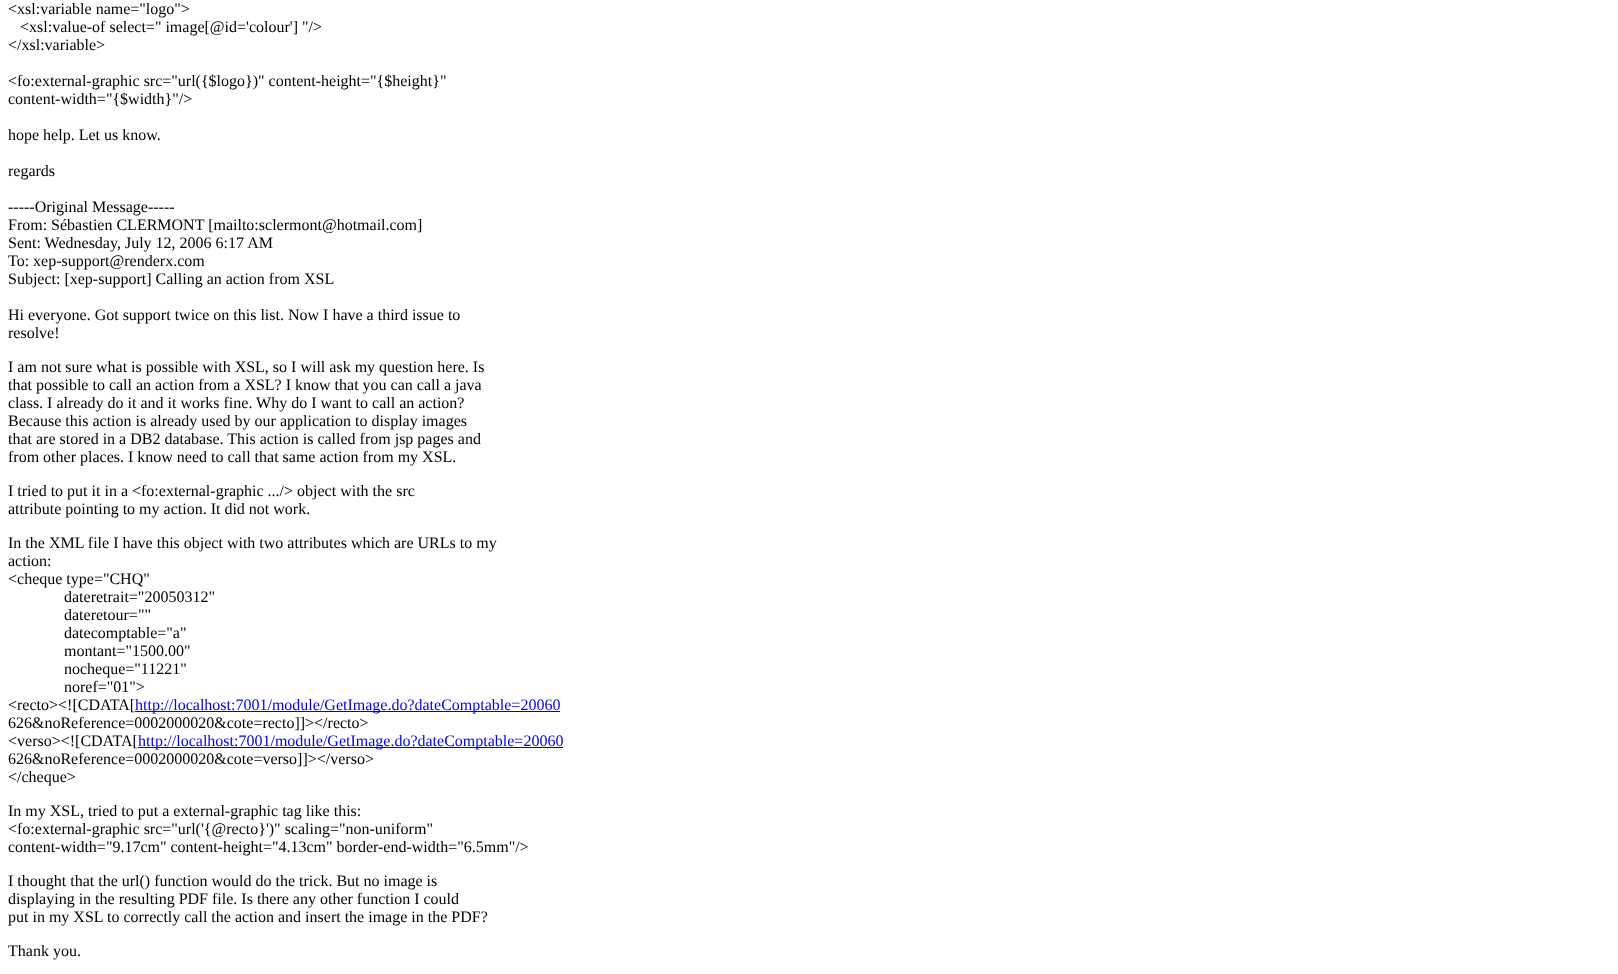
<svg xmlns="http://www.w3.org/2000/svg" width="1618" height="974">
<rect width="100%" height="100%" fill="#fff"/>
<text x="8" y="14" style="font-family:Liberation Serif;font-size:16px;fill:#000">&lt;xsl:variable name="logo"&gt;</text>
<text x="20" y="32" style="font-family:Liberation Serif;font-size:16px;fill:#000">&lt;xsl:value-of select=" image[@id='colour'] "/&gt;</text>
<text x="8" y="50" style="font-family:Liberation Serif;font-size:16px;fill:#000">&lt;/xsl:variable&gt;</text>
<text x="8" y="86" style="font-family:Liberation Serif;font-size:16px;fill:#000">&lt;fo:external-graphic src="url({$logo})" content-height="{$height}"</text>
<text x="8" y="104" style="font-family:Liberation Serif;font-size:16px;fill:#000">content-width="{$width}"/&gt;</text>
<text x="8" y="140" style="font-family:Liberation Serif;font-size:16px;fill:#000">hope help. Let us know.</text>
<text x="8" y="176" style="font-family:Liberation Serif;font-size:16px;fill:#000">regards</text>
<text x="8" y="212" style="font-family:Liberation Serif;font-size:16px;fill:#000">-----Original Message-----</text>
<text x="8" y="230" style="font-family:Liberation Serif;font-size:16px;fill:#000">From: Sébastien CLERMONT [mailto:sclermont@hotmail.com]</text>
<text x="8" y="248" style="font-family:Liberation Serif;font-size:16px;fill:#000">Sent: Wednesday, July 12, 2006 6:17 AM</text>
<text x="8" y="266" style="font-family:Liberation Serif;font-size:16px;fill:#000">To: xep-support@renderx.com</text>
<text x="8" y="284" style="font-family:Liberation Serif;font-size:16px;fill:#000">Subject: [xep-support] Calling an action from XSL</text>
<text x="8" y="320" style="font-family:Liberation Serif;font-size:16px;fill:#000">Hi everyone. Got support twice on this list. Now I have a third issue to</text>
<text x="8" y="338" style="font-family:Liberation Serif;font-size:16px;fill:#000">resolve!</text>
<text x="8" y="372" style="font-family:Liberation Serif;font-size:16px;fill:#000">I am not sure what is possible with XSL, so I will ask my question here. Is</text>
<text x="8" y="390" style="font-family:Liberation Serif;font-size:16px;fill:#000">that possible to call an action from a XSL? I know that you can call a java</text>
<text x="8" y="408" style="font-family:Liberation Serif;font-size:16px;fill:#000">class. I already do it and it works fine. Why do I want to call an action?</text>
<text x="8" y="426" style="font-family:Liberation Serif;font-size:16px;fill:#000">Because this action is already used by our application to display images</text>
<text x="8" y="444" style="font-family:Liberation Serif;font-size:16px;fill:#000">that are stored in a DB2 database. This action is called from jsp pages and</text>
<text x="8" y="462" style="font-family:Liberation Serif;font-size:16px;fill:#000">from other places. I know need to call that same action from my XSL.</text>
<text x="8" y="496" style="font-family:Liberation Serif;font-size:16px;fill:#000">I tried to put it in a &lt;fo:external-graphic .../&gt; object with the src</text>
<text x="8" y="514" style="font-family:Liberation Serif;font-size:16px;fill:#000">attribute pointing to my action. It did not work.</text>
<text x="8" y="548" style="font-family:Liberation Serif;font-size:16px;fill:#000">In the XML file I have this object with two attributes which are URLs to my</text>
<text x="8" y="566" style="font-family:Liberation Serif;font-size:16px;fill:#000">action:</text>
<text x="8" y="584" style="font-family:Liberation Serif;font-size:16px;fill:#000">&lt;cheque type="CHQ"</text>
<text x="64" y="602" style="font-family:Liberation Serif;font-size:16px;fill:#000">dateretrait="20050312"</text>
<text x="64" y="620" style="font-family:Liberation Serif;font-size:16px;fill:#000">dateretour=""</text>
<text x="64" y="638" style="font-family:Liberation Serif;font-size:16px;fill:#000">datecomptable="a"</text>
<text x="64" y="656" style="font-family:Liberation Serif;font-size:16px;fill:#000">montant="1500.00"</text>
<text x="64" y="674" style="font-family:Liberation Serif;font-size:16px;fill:#000">nocheque="11221"</text>
<text x="64" y="692" style="font-family:Liberation Serif;font-size:16px;fill:#000">noref="01"&gt;</text>
<text x="8" y="710" style="font-family:Liberation Serif;font-size:16px;fill:#000">&lt;recto&gt;&lt;![CDATA[</text>
<rect x="135" y="711" width="425" height="1" fill="#00e"/>
<text x="135" y="710" style="font-family:Liberation Serif;font-size:16px;fill:#00e">http://localhost:7001/module/GetImage.do?dateComptable=20060</text>
<text x="8" y="728" style="font-family:Liberation Serif;font-size:16px;fill:#000">626&amp;noReference=0002000020&amp;cote=recto]]&gt;&lt;/recto&gt;</text>
<text x="8" y="746" style="font-family:Liberation Serif;font-size:16px;fill:#000">&lt;verso&gt;&lt;![CDATA[</text>
<rect x="138" y="747" width="425" height="1" fill="#00e"/>
<text x="138" y="746" style="font-family:Liberation Serif;font-size:16px;fill:#00e">http://localhost:7001/module/GetImage.do?dateComptable=20060</text>
<text x="8" y="764" style="font-family:Liberation Serif;font-size:16px;fill:#000">626&amp;noReference=0002000020&amp;cote=verso]]&gt;&lt;/verso&gt;</text>
<text x="8" y="782" style="font-family:Liberation Serif;font-size:16px;fill:#000">&lt;/cheque&gt;</text>
<text x="8" y="816" style="font-family:Liberation Serif;font-size:16px;fill:#000">In my XSL, tried to put a external-graphic tag like this:</text>
<text x="8" y="834" style="font-family:Liberation Serif;font-size:16px;fill:#000">&lt;fo:external-graphic src="url('{@recto}')" scaling="non-uniform"</text>
<text x="8" y="852" style="font-family:Liberation Serif;font-size:16px;fill:#000">content-width="9.17cm" content-height="4.13cm" border-end-width="6.5mm"/&gt;</text>
<text x="8" y="886" style="font-family:Liberation Serif;font-size:16px;fill:#000">I thought that the url() function would do the trick. But no image is</text>
<text x="8" y="904" style="font-family:Liberation Serif;font-size:16px;fill:#000">displaying in the resulting PDF file. Is there any other function I could</text>
<text x="8" y="922" style="font-family:Liberation Serif;font-size:16px;fill:#000">put in my XSL to correctly call the action and insert the image in the PDF?</text>
<text x="8" y="956" style="font-family:Liberation Serif;font-size:16px;fill:#000">Thank you.</text>
</svg>
